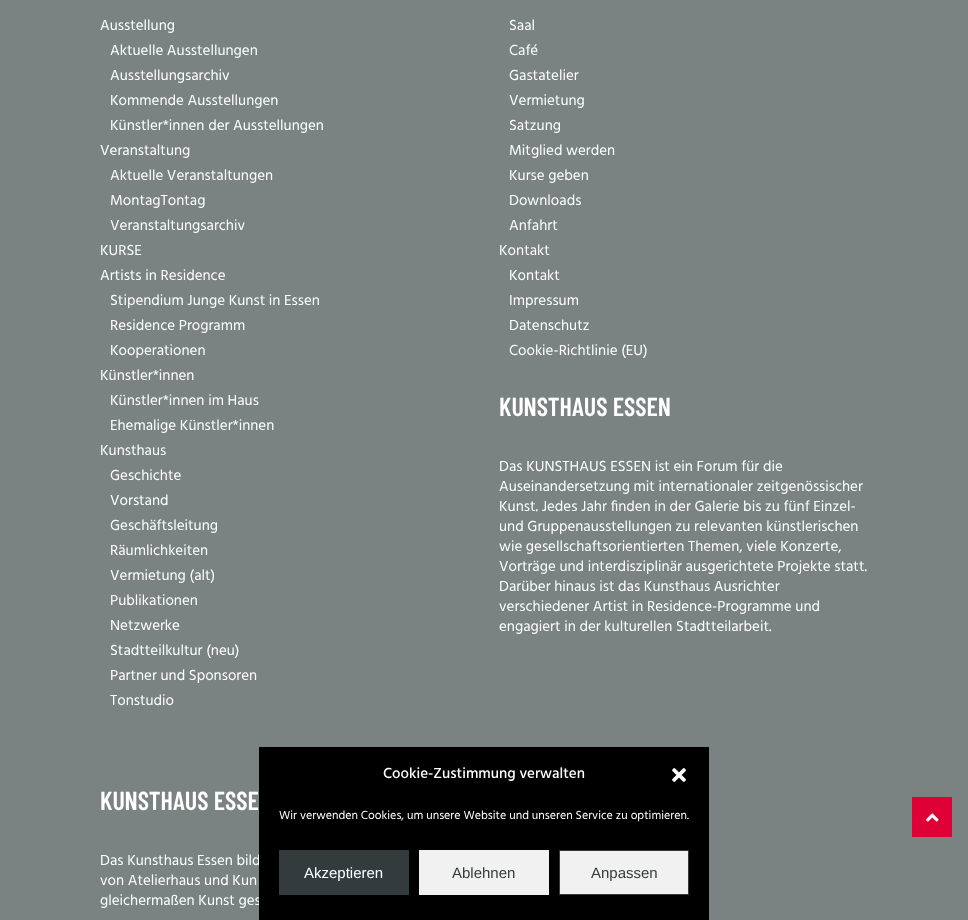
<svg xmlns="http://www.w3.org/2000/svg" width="968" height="920">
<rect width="100%" height="100%" fill="#7b8382"/>
<text x="100" y="30" style="font-family:Hind;font-size:15px;fill:#fff">Ausstellung</text>
<text x="110" y="55" style="font-family:Hind;font-size:15px;fill:#fff">Aktuelle Ausstellungen</text>
<text x="110" y="80" style="font-family:Hind;font-size:15px;fill:#fff">Ausstellungsarchiv</text>
<text x="110" y="105" style="font-family:Hind;font-size:15px;fill:#fff">Kommende Ausstellungen</text>
<text x="110" y="130" style="font-family:Hind;font-size:15px;fill:#fff">Künstler*innen der Ausstellungen</text>
<text x="100" y="155" style="font-family:Hind;font-size:15px;fill:#fff">Veranstaltung</text>
<text x="110" y="180" style="font-family:Hind;font-size:15px;fill:#fff">Aktuelle Veranstaltungen</text>
<text x="110" y="205" style="font-family:Hind;font-size:15px;fill:#fff">MontagTontag</text>
<text x="110" y="230" style="font-family:Hind;font-size:15px;fill:#fff">Veranstaltungsarchiv</text>
<text x="100" y="255" style="font-family:Hind;font-size:15px;fill:#fff">KURSE</text>
<text x="100" y="280" style="font-family:Hind;font-size:15px;fill:#fff">Artists in Residence</text>
<text x="110" y="305" style="font-family:Hind;font-size:15px;fill:#fff">Stipendium Junge Kunst in Essen</text>
<text x="110" y="330" style="font-family:Hind;font-size:15px;fill:#fff">Residence Programm</text>
<text x="110" y="355" style="font-family:Hind;font-size:15px;fill:#fff">Kooperationen</text>
<text x="100" y="380" style="font-family:Hind;font-size:15px;fill:#fff">Künstler*innen</text>
<text x="110" y="405" style="font-family:Hind;font-size:15px;fill:#fff">Künstler*innen im Haus</text>
<text x="110" y="430" style="font-family:Hind;font-size:15px;fill:#fff">Ehemalige Künstler*innen</text>
<text x="100" y="455" style="font-family:Hind;font-size:15px;fill:#fff">Kunsthaus</text>
<text x="110" y="480" style="font-family:Hind;font-size:15px;fill:#fff">Geschichte</text>
<text x="110" y="505" style="font-family:Hind;font-size:15px;fill:#fff">Vorstand</text>
<text x="110" y="530" style="font-family:Hind;font-size:15px;fill:#fff">Geschäftsleitung</text>
<text x="110" y="555" style="font-family:Hind;font-size:15px;fill:#fff">Räumlichkeiten</text>
<text x="110" y="580" style="font-family:Hind;font-size:15px;fill:#fff">Vermietung (alt)</text>
<text x="110" y="605" style="font-family:Hind;font-size:15px;fill:#fff">Publikationen</text>
<text x="110" y="630" style="font-family:Hind;font-size:15px;fill:#fff">Netzwerke</text>
<text x="110" y="655" style="font-family:Hind;font-size:15px;fill:#fff">Stadtteilkultur (neu)</text>
<text x="110" y="680" style="font-family:Hind;font-size:15px;fill:#fff">Partner und Sponsoren</text>
<text x="110" y="705" style="font-family:Hind;font-size:15px;fill:#fff">Tonstudio</text>
<text x="509" y="30" style="font-family:Hind;font-size:15px;fill:#fff">Saal</text>
<text x="509" y="55" style="font-family:Hind;font-size:15px;fill:#fff">Café</text>
<text x="509" y="80" style="font-family:Hind;font-size:15px;fill:#fff">Gastatelier</text>
<text x="509" y="105" style="font-family:Hind;font-size:15px;fill:#fff">Vermietung</text>
<text x="509" y="130" style="font-family:Hind;font-size:15px;fill:#fff">Satzung</text>
<text x="509" y="155" style="font-family:Hind;font-size:15px;fill:#fff">Mitglied werden</text>
<text x="509" y="180" style="font-family:Hind;font-size:15px;fill:#fff">Kurse geben</text>
<text x="509" y="205" style="font-family:Hind;font-size:15px;fill:#fff">Downloads</text>
<text x="509" y="230" style="font-family:Hind;font-size:15px;fill:#fff">Anfahrt</text>
<text x="499" y="255" style="font-family:Hind;font-size:15px;fill:#fff">Kontakt</text>
<text x="509" y="280" style="font-family:Hind;font-size:15px;fill:#fff">Kontakt</text>
<text x="509" y="305" style="font-family:Hind;font-size:15px;fill:#fff">Impressum</text>
<text x="509" y="330" style="font-family:Hind;font-size:15px;fill:#fff">Datenschutz</text>
<text x="509" y="355" style="font-family:Hind;font-size:15px;fill:#fff">Cookie-Richtlinie (EU)</text>
<text x="499" y="416" style="font-family:Barlow Condensed;font-size:26px;font-weight:600;fill:#fff">KUNSTHAUS ESSEN</text>
<text x="499" y="471" style="font-family:Hind;font-size:15px;fill:#fff">Das KUNSTHAUS ESSEN ist ein Forum für die</text>
<text x="499" y="491" style="font-family:Hind;font-size:15px;fill:#fff">Auseinandersetzung mit internationaler zeitgenössischer</text>
<text x="499" y="511" style="font-family:Hind;font-size:15px;fill:#fff">Kunst. Jedes Jahr finden in der Galerie bis zu fünf Einzel-</text>
<text x="499" y="531" style="font-family:Hind;font-size:15px;fill:#fff">und Gruppenausstellungen zu relevanten künstlerischen</text>
<text x="499" y="551" style="font-family:Hind;font-size:15px;fill:#fff">wie gesellschaftsorientierten Themen, viele Konzerte,</text>
<text x="499" y="571" style="font-family:Hind;font-size:15px;fill:#fff">Vorträge und interdisziplinär ausgerichtete Projekte statt.</text>
<text x="499" y="591" style="font-family:Hind;font-size:15px;fill:#fff">Darüber hinaus ist das Kunsthaus Ausrichter</text>
<text x="499" y="611" style="font-family:Hind;font-size:15px;fill:#fff">verschiedener Artist in Residence-Programme und</text>
<text x="499" y="631" style="font-family:Hind;font-size:15px;fill:#fff">engagiert in der kulturellen Stadtteilarbeit.</text>
<text x="100" y="810" style="font-family:Barlow Condensed;font-size:26px;font-weight:600;fill:#fff">KUNSTHAUS ESSE</text>
<text x="100" y="865" style="font-family:Hind;font-size:15px;fill:#fff">Das Kunsthaus Essen bild</text>
<text x="100" y="885" style="font-family:Hind;font-size:15px;fill:#fff">von Atelierhaus und Kun</text>
<text x="100" y="905" style="font-family:Hind;font-size:15px;fill:#fff">gleichermaßen Kunst ges</text>
<rect x="912" y="797" width="40" height="40" fill="#df0035"/>
<image x="926" y="813" width="13" height="9" href="media/1.png"/>
<rect x="259" y="747" width="450" height="173" fill="#000"/>
<text x="383" y="778" style="font-family:Hind;font-size:15px;font-weight:500;fill:#fff">Cookie-Zustimmung verwalten</text>
<image x="672" y="768" width="14" height="14" href="media/2.png"/>
<text x="279" y="819" style="font-family:Hind;font-size:12px;fill:#fff">Wir verwenden Cookies, um unsere Website und unseren Service zu optimieren.</text>
<rect x="279" y="850" width="130" height="45" fill="#333b3d"/>
<text x="304" y="878" style="font-family:Liberation Sans;font-size:15px;fill:#fff">Akzeptieren</text>
<rect x="419" y="850" width="130" height="45" fill="#f1f1f1"/>
<text x="452" y="878" style="font-family:Liberation Sans;font-size:15px;fill:#333b3d">Ablehnen</text>
<rect x="559.5" y="850.5" width="129" height="44" fill="#f1f1f1" stroke="#333b3d"/>
<text x="591" y="878" style="font-family:Liberation Sans;font-size:15px;fill:#333b3d">Anpassen</text>
</svg>
